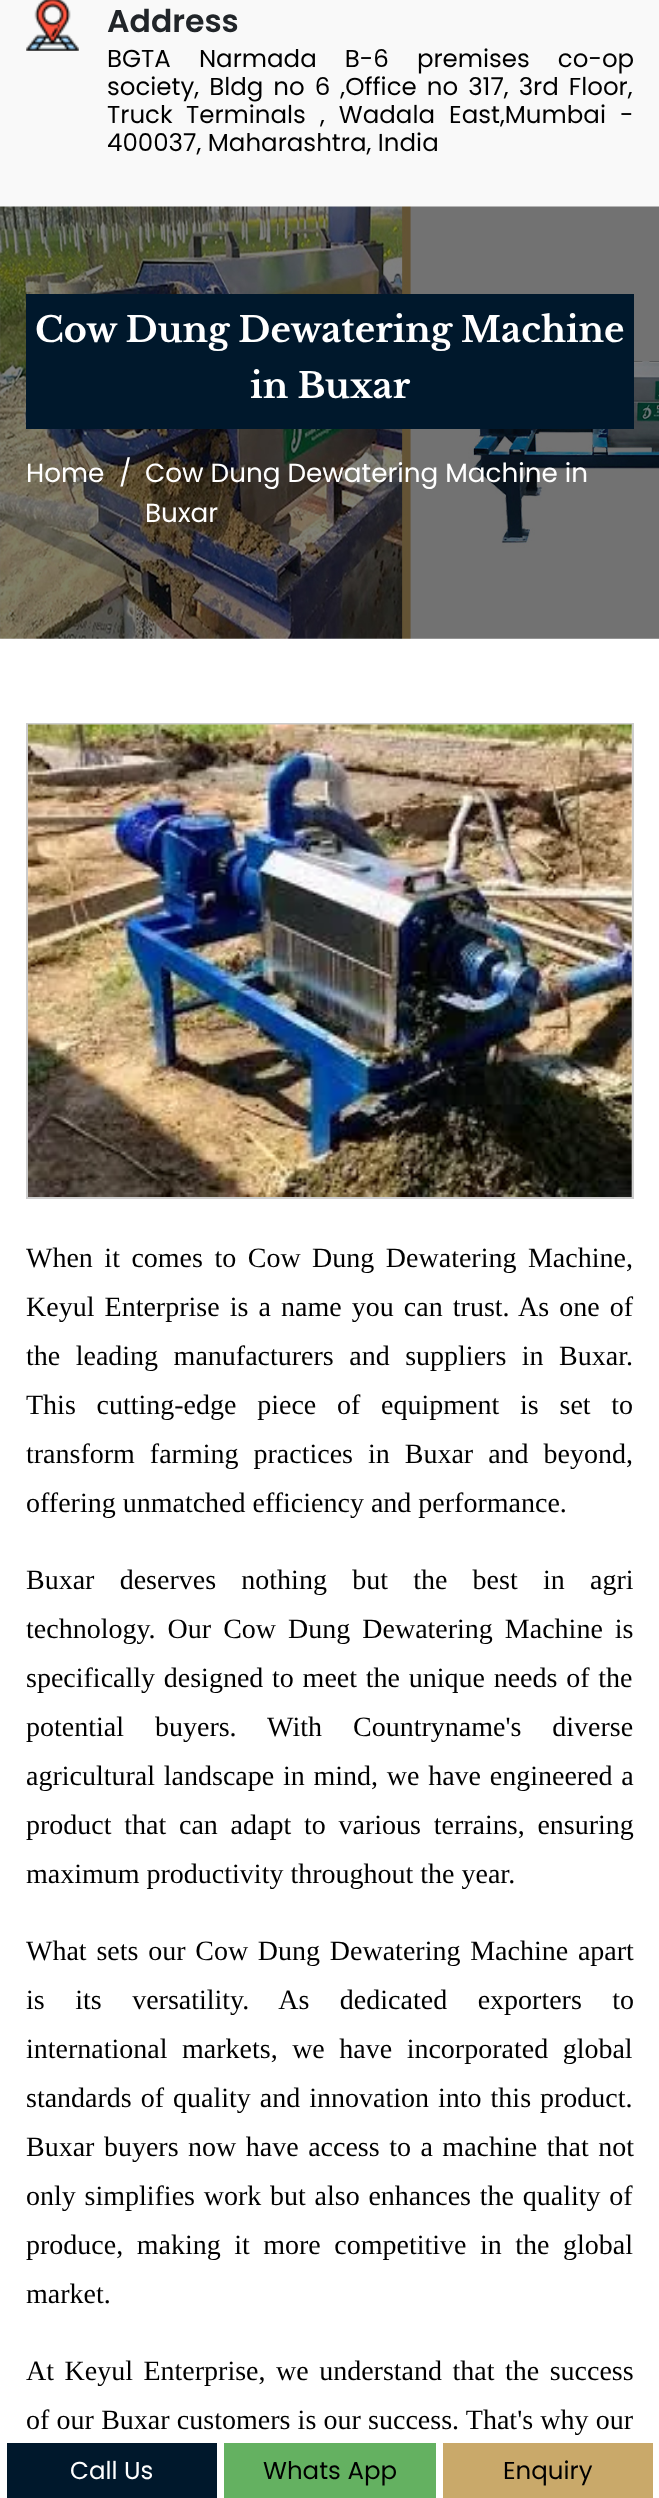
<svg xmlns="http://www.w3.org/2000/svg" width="659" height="2498">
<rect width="100%" height="100%" fill="#fff"/>
<rect width="659" height="207" fill="#f9f9f9"/>
<image x="26" y="0" width="53" height="51" href="media/1.png"/>
<text x="107" y="32" style="font-family:Poppins;font-size:31.5px;font-weight:600;fill:#212529">Address</text>
<text x="107" y="67" word-spacing="21.5" style="font-family:Poppins;font-size:24.5px;fill:#000">BGTA Narmada B-6 premises co-op</text>
<text x="107" y="95" word-spacing="3.5" style="font-family:Poppins;font-size:24.5px;fill:#000">society, Bldg no 6 ,Office no 317, 3rd Floor,</text>
<text x="107" y="123" style="font-family:Poppins;font-size:24.5px;fill:#000">Truck</text>
<text x="186" y="123" word-spacing="7.5" style="font-family:Poppins;font-size:24.5px;fill:#000">Terminals , Wadala East,Mumbai -</text>
<text x="107" y="151" style="font-family:Poppins;font-size:24.5px;fill:#000">400037, Maharashtra, India</text>
<image x="0" y="206" width="659" height="433" href="media/2.png"/>
<rect x="26" y="294" width="608" height="135" fill="#00182c"/>
<text x="35" y="342" style="font-family:Libre Baskerville;font-size:35px;font-weight:bold;fill:#fff">Cow Dung Dewatering Machine</text>
<text x="250" y="398" style="font-family:Libre Baskerville;font-size:35px;font-weight:bold;fill:#fff">in Buxar</text>
<text x="26" y="482" style="font-family:Poppins;font-size:26.25px;fill:#fff">Home</text>
<text x="119" y="482" style="font-family:Poppins;font-size:26.25px;fill:#fff">/</text>
<text x="145" y="482" style="font-family:Poppins;font-size:26.25px;fill:#fff">Cow Dung Dewatering Machine in</text>
<text x="145" y="522" style="font-family:Poppins;font-size:26.25px;fill:#fff">Buxar</text>
<rect x="27" y="724" width="606" height="474" fill="none" stroke="#ccc" stroke-width="2"/>
<image x="28" y="724" width="604" height="473" href="media/3.png"/>
<text x="26" y="1267" word-spacing="4.5" style="font-family:Liberation Serif;font-size:28px;fill:#000">When it comes to Cow Dung Dewatering Machine,</text>
<text x="26" y="1316" word-spacing="3.1" style="font-family:Liberation Serif;font-size:28px;fill:#000">Keyul Enterprise is a name you can trust. As one of</text>
<text x="26" y="1365" word-spacing="8.5" style="font-family:Liberation Serif;font-size:28px;fill:#000">the leading manufacturers and suppliers in Buxar.</text>
<text x="26" y="1414" word-spacing="13.75" style="font-family:Liberation Serif;font-size:28px;fill:#000">This cutting-edge piece of equipment is set to</text>
<text x="26" y="1463" word-spacing="8" style="font-family:Liberation Serif;font-size:28px;fill:#000">transform farming practices in Buxar and beyond,</text>
<text x="26" y="1512" style="font-family:Liberation Serif;font-size:28px;fill:#000">offering unmatched efficiency and performance.</text>
<text x="26" y="1589" word-spacing="18.25" style="font-family:Liberation Serif;font-size:28px;fill:#000">Buxar deserves nothing but the best in agri</text>
<text x="26" y="1638" word-spacing="5" style="font-family:Liberation Serif;font-size:28px;fill:#000">technology. Our Cow Dung Dewatering Machine is</text>
<text x="26" y="1687" word-spacing="1.75" style="font-family:Liberation Serif;font-size:28px;fill:#000">specifically designed to meet the unique needs of the</text>
<text x="26" y="1736" word-spacing="24" style="font-family:Liberation Serif;font-size:28px;fill:#000">potential buyers. With Countryname's diverse</text>
<text x="26" y="1785" word-spacing="1.75" style="font-family:Liberation Serif;font-size:28px;fill:#000">agricultural landscape in mind, we have engineered a</text>
<text x="26" y="1834" word-spacing="5.75" style="font-family:Liberation Serif;font-size:28px;fill:#000">product that can adapt to various terrains, ensuring</text>
<text x="26" y="1883" style="font-family:Liberation Serif;font-size:28px;fill:#000">maximum productivity throughout the year.</text>
<text x="26" y="1960" word-spacing="2.75" style="font-family:Liberation Serif;font-size:28px;fill:#000">What sets our Cow Dung Dewatering Machine apart</text>
<text x="26" y="2009" word-spacing="23.5" style="font-family:Liberation Serif;font-size:28px;fill:#000">is its versatility. As dedicated exporters to</text>
<text x="26" y="2058" word-spacing="7.5" style="font-family:Liberation Serif;font-size:28px;fill:#000">international markets, we have incorporated global</text>
<text x="26" y="2107" word-spacing="2" style="font-family:Liberation Serif;font-size:28px;fill:#000">standards of quality and innovation into this product.</text>
<text x="26" y="2156" word-spacing="2.5" style="font-family:Liberation Serif;font-size:28px;fill:#000">Buxar buyers now have access to a machine that not</text>
<text x="26" y="2205" word-spacing="1.75" style="font-family:Liberation Serif;font-size:28px;fill:#000">only simplifies work but also enhances the quality of</text>
<text x="26" y="2254" word-spacing="6.5" style="font-family:Liberation Serif;font-size:28px;fill:#000">produce, making it more competitive in the global</text>
<text x="26" y="2303" style="font-family:Liberation Serif;font-size:28px;fill:#000">market.</text>
<text x="26" y="2380" word-spacing="3.5" style="font-family:Liberation Serif;font-size:28px;fill:#000">At Keyul Enterprise, we understand that the success</text>
<text x="26" y="2429" word-spacing="0.25" style="font-family:Liberation Serif;font-size:28px;fill:#000">of our Buxar customers is our success. That's why our</text>
<rect x="7" y="2443" width="210" height="55" fill="#00182c"/>
<text x="70" y="2479" style="font-family:Poppins;font-size:24.5px;fill:#fff">Call Us</text>
<rect x="224" y="2443" width="212" height="55" fill="#64b161"/>
<text x="263" y="2479" style="font-family:Poppins;font-size:24.5px;fill:#000">Whats App</text>
<rect x="443" y="2443" width="210" height="55" fill="#c9a96a"/>
<text x="503" y="2479" style="font-family:Poppins;font-size:24.5px;fill:#000">Enquiry</text>
</svg>
